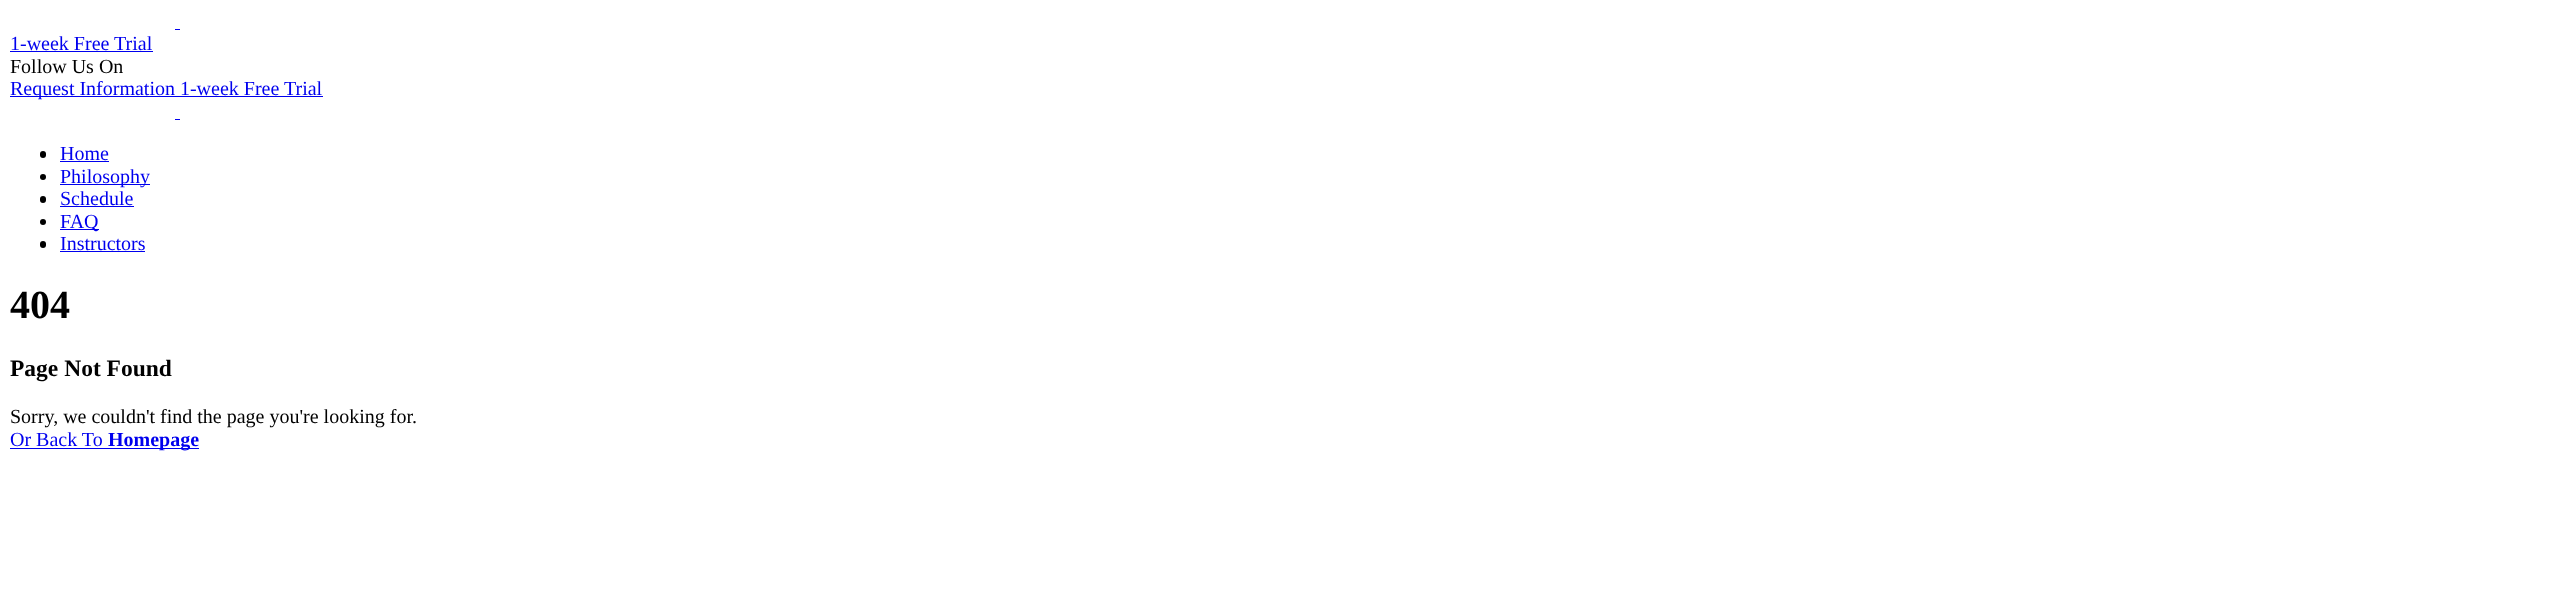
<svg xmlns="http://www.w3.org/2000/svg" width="2567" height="590">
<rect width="100%" height="100%" fill="#fff"/>
<rect x="175" y="29" width="5" height="1" fill="#00e"/>
<text x="10" y="50" style="font-family:Liberation Serif;font-size:20px;fill:#00e">1-week Free Trial</text>
<rect x="10" y="51" width="143" height="1" fill="#00e"/>
<text x="10" y="73" style="font-family:Liberation Serif;font-size:20px;fill:#000">Follow Us On</text>
<rect x="10" y="96" width="313" height="1" fill="#00e"/>
<text x="10" y="95" style="font-family:Liberation Serif;font-size:20px;fill:#00e">Request Information 1-week Free Trial</text>
<rect x="175" y="119" width="5" height="1" fill="#00e"/>
<rect x="40" y="151" width="6" height="7" rx="3" fill="#000"/>
<text x="60" y="160" style="font-family:Liberation Serif;font-size:20px;fill:#00e">Home</text>
<rect x="60" y="161" width="49" height="1" fill="#00e"/>
<circle cx="43" cy="177" r="3" fill="#000"/>
<rect x="60" y="184" width="90" height="1" fill="#00e"/>
<text x="60" y="183" style="font-family:Liberation Serif;font-size:20px;fill:#00e">Philosophy</text>
<rect x="40" y="196" width="6" height="7" rx="3" fill="#000"/>
<text x="60" y="205" style="font-family:Liberation Serif;font-size:20px;fill:#00e">Schedule</text>
<rect x="60" y="206" width="74" height="1" fill="#00e"/>
<circle cx="43" cy="222" r="3" fill="#000"/>
<rect x="60" y="229" width="39" height="1" fill="#00e"/>
<text x="60" y="228" style="font-family:Liberation Serif;font-size:20px;fill:#00e">FAQ</text>
<rect x="40" y="241" width="6" height="7" rx="3" fill="#000"/>
<text x="60" y="250" style="font-family:Liberation Serif;font-size:20px;fill:#00e">Instructors</text>
<rect x="60" y="251" width="85" height="1" fill="#00e"/>
<text x="10" y="318" style="font-family:Liberation Serif;font-size:40px;font-weight:bold;fill:#000">404</text>
<text x="10" y="376" style="font-family:Liberation Serif;font-size:23.5px;font-weight:bold;fill:#000">Page Not Found</text>
<text x="10" y="423" style="font-family:Liberation Serif;font-size:20px;fill:#000">Sorry, we couldn't find the page you're looking for.</text>
<text x="10" y="446" style="font-family:Liberation Serif;font-size:20px;fill:#00e">Or Back To</text>
<rect x="10" y="448" width="189" height="1" fill="#00e"/>
<text x="108" y="446" style="font-family:Liberation Serif;font-size:20px;font-weight:bold;fill:#00e">Homepage</text>
</svg>
